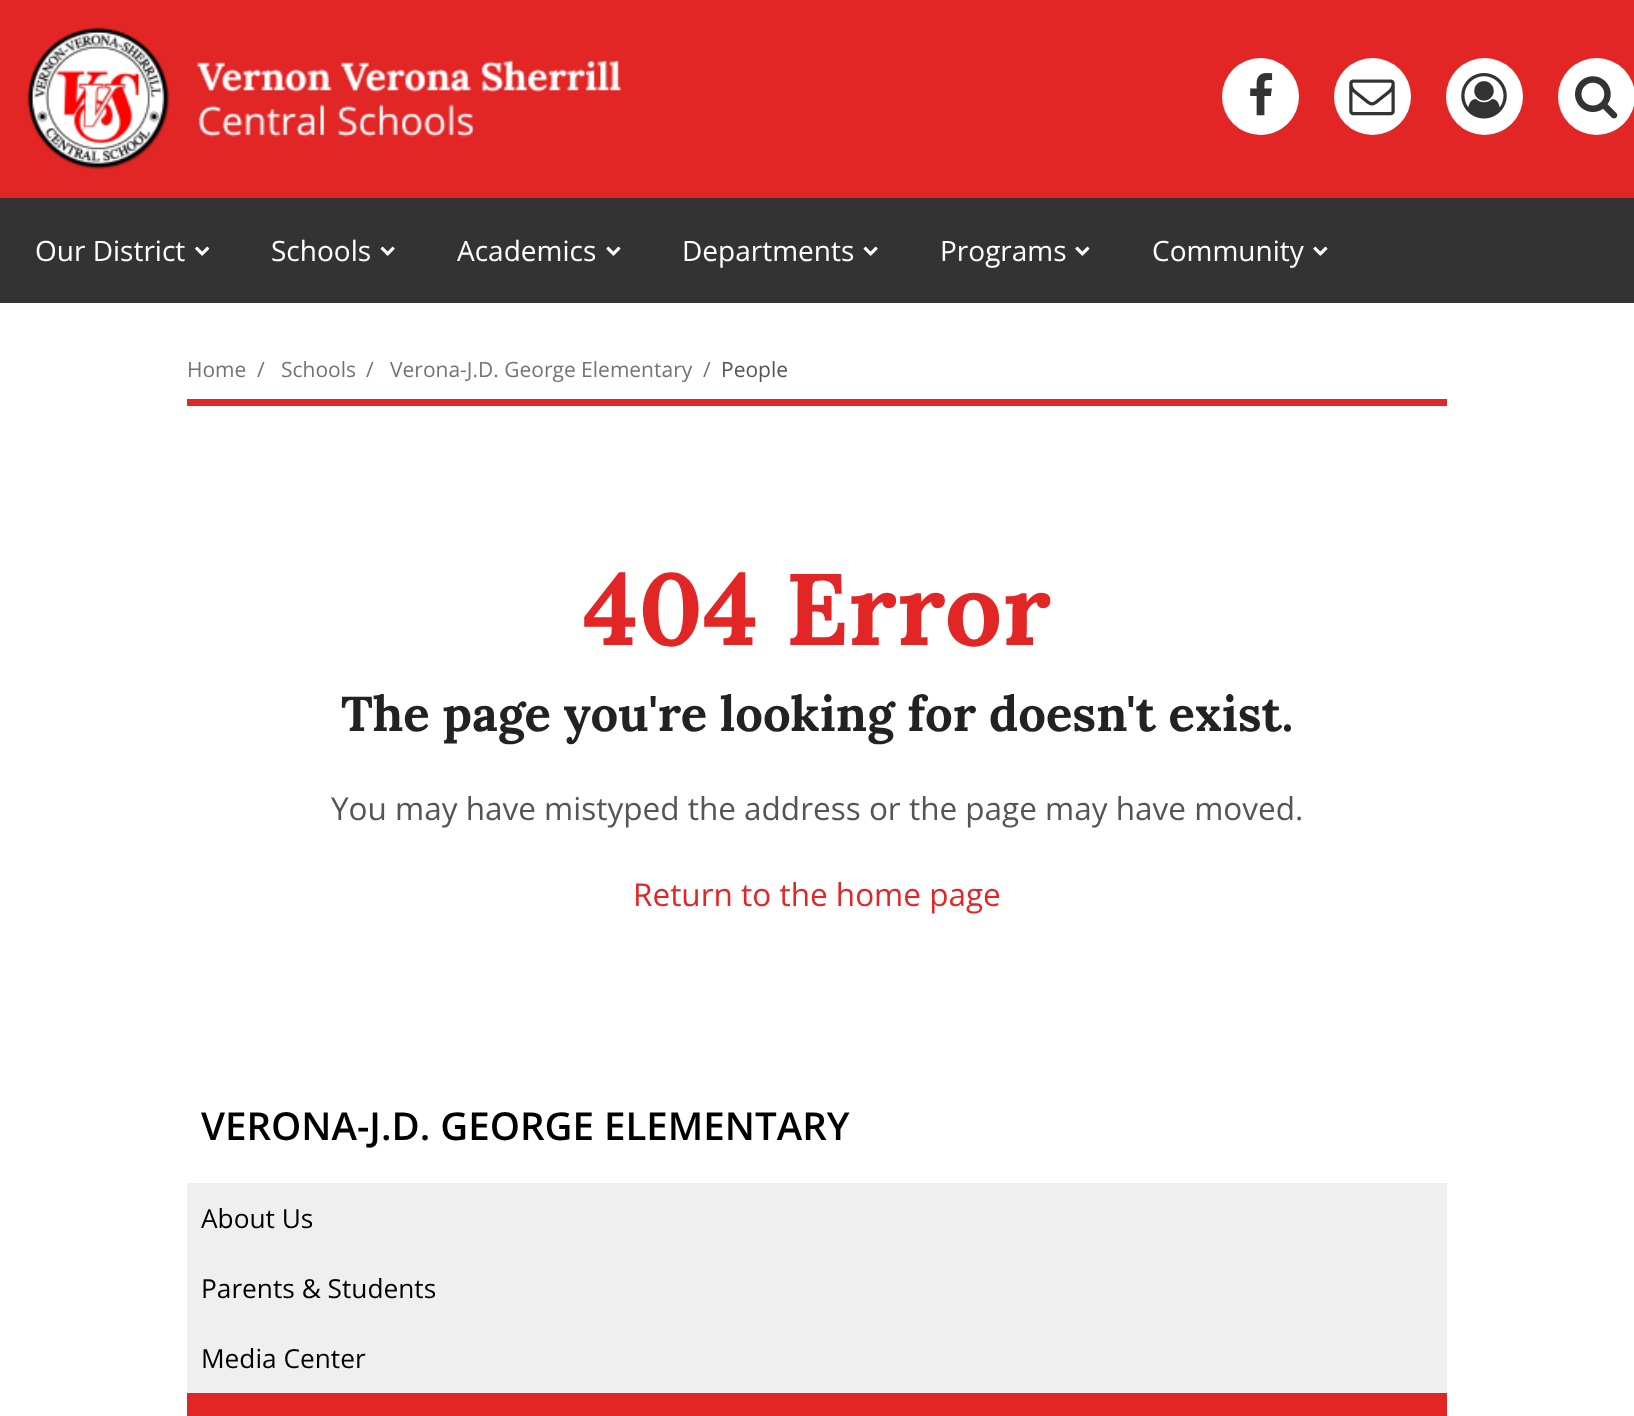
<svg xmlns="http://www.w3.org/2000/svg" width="1634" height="1416">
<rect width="100%" height="100%" fill="#fff"/>
<rect width="1634" height="198" fill="#e22626"/>
<image x="27" y="27" width="595" height="143" href="media/1.png"/>
<circle cx="1260.5" cy="96.5" r="38.5" fill="#fff"/>
<image x="1250" y="73" width="23" height="43" href="media/2.png"/>
<circle cx="1372.5" cy="96.5" r="38.5" fill="#fff"/>
<image x="1349" y="79" width="46" height="37" href="media/3.png"/>
<circle cx="1484.5" cy="96.5" r="38.5" fill="#fff"/>
<image x="1461" y="73" width="46" height="46" href="media/4.png"/>
<circle cx="1596.5" cy="96.5" r="38.5" fill="#fff"/>
<image x="1575" y="76" width="43" height="43" href="media/5.png"/>
<rect y="198" width="1634" height="105" fill="#333"/>
<text x="35" y="261" style="font-family:Open Sans;font-size:28px;fill:#fff">Our District</text>
<image x="195" y="246" width="15" height="10" href="media/6.png"/>
<text x="271" y="261" style="font-family:Open Sans;font-size:28px;fill:#fff">Schools</text>
<image x="380" y="246" width="15" height="10" href="media/7.png"/>
<text x="457" y="261" style="font-family:Open Sans;font-size:28px;fill:#fff">Academics</text>
<image x="606" y="246" width="15" height="10" href="media/8.png"/>
<text x="682" y="261" style="font-family:Open Sans;font-size:28px;fill:#fff">Departments</text>
<image x="863" y="246" width="15" height="10" href="media/7.png"/>
<text x="940" y="261" style="font-family:Open Sans;font-size:28px;fill:#fff">Programs</text>
<image x="1075" y="246" width="15" height="10" href="media/8.png"/>
<text x="1152" y="261" style="font-family:Open Sans;font-size:28px;fill:#fff">Community</text>
<image x="1313" y="246" width="15" height="10" href="media/8.png"/>
<rect x="187" y="399" width="1260" height="7" fill="#e22626"/>
<text x="187" y="377" style="font-family:Open Sans;font-size:21px;fill:#747474">Home</text>
<text x="257" y="377" style="font-family:Open Sans;font-size:21px;fill:#747474">/</text>
<text x="281" y="377" style="font-family:Open Sans;font-size:21px;fill:#747474">Schools</text>
<text x="366" y="377" style="font-family:Open Sans;font-size:21px;fill:#747474">/</text>
<text x="390" y="377" style="font-family:Open Sans;font-size:21px;fill:#747474">Verona-J.D. George Elementary</text>
<text x="703" y="377" style="font-family:Open Sans;font-size:21px;fill:#747474">/</text>
<text x="721" y="377" style="font-family:Open Sans;font-size:21px;fill:#555">People</text>
<text x="583" y="645" style="font-family:Lora;font-size:101.5px;font-weight:bold;fill:#e22626">404 Error</text>
<text x="341" y="731" style="font-family:Lora;font-size:49px;font-weight:bold;fill:#222">The page you're looking for doesn't exist.</text>
<text x="331" y="820" style="font-family:Open Sans;font-size:31.5px;fill:#555">You may have mistyped the address or the page may have moved.</text>
<text x="633" y="906" style="font-family:Open Sans;font-size:31.5px;fill:#e22626">Return to the home page</text>
<text x="201" y="1140" style="font-family:Open Sans;font-size:38.5px;font-weight:600;fill:#000">VERONA-J.D. GEORGE ELEMENTARY</text>
<rect x="187" y="1183" width="1260" height="210" fill="#efefef"/>
<text x="201" y="1228" style="font-family:Open Sans;font-size:26.25px;fill:#000">About Us</text>
<text x="201" y="1298" style="font-family:Open Sans;font-size:26.25px;fill:#000">Parents &amp; Students</text>
<text x="201" y="1368" style="font-family:Open Sans;font-size:26.25px;fill:#000">Media Center</text>
<rect x="187" y="1393" width="1260" height="23" fill="#e22626"/>
</svg>
